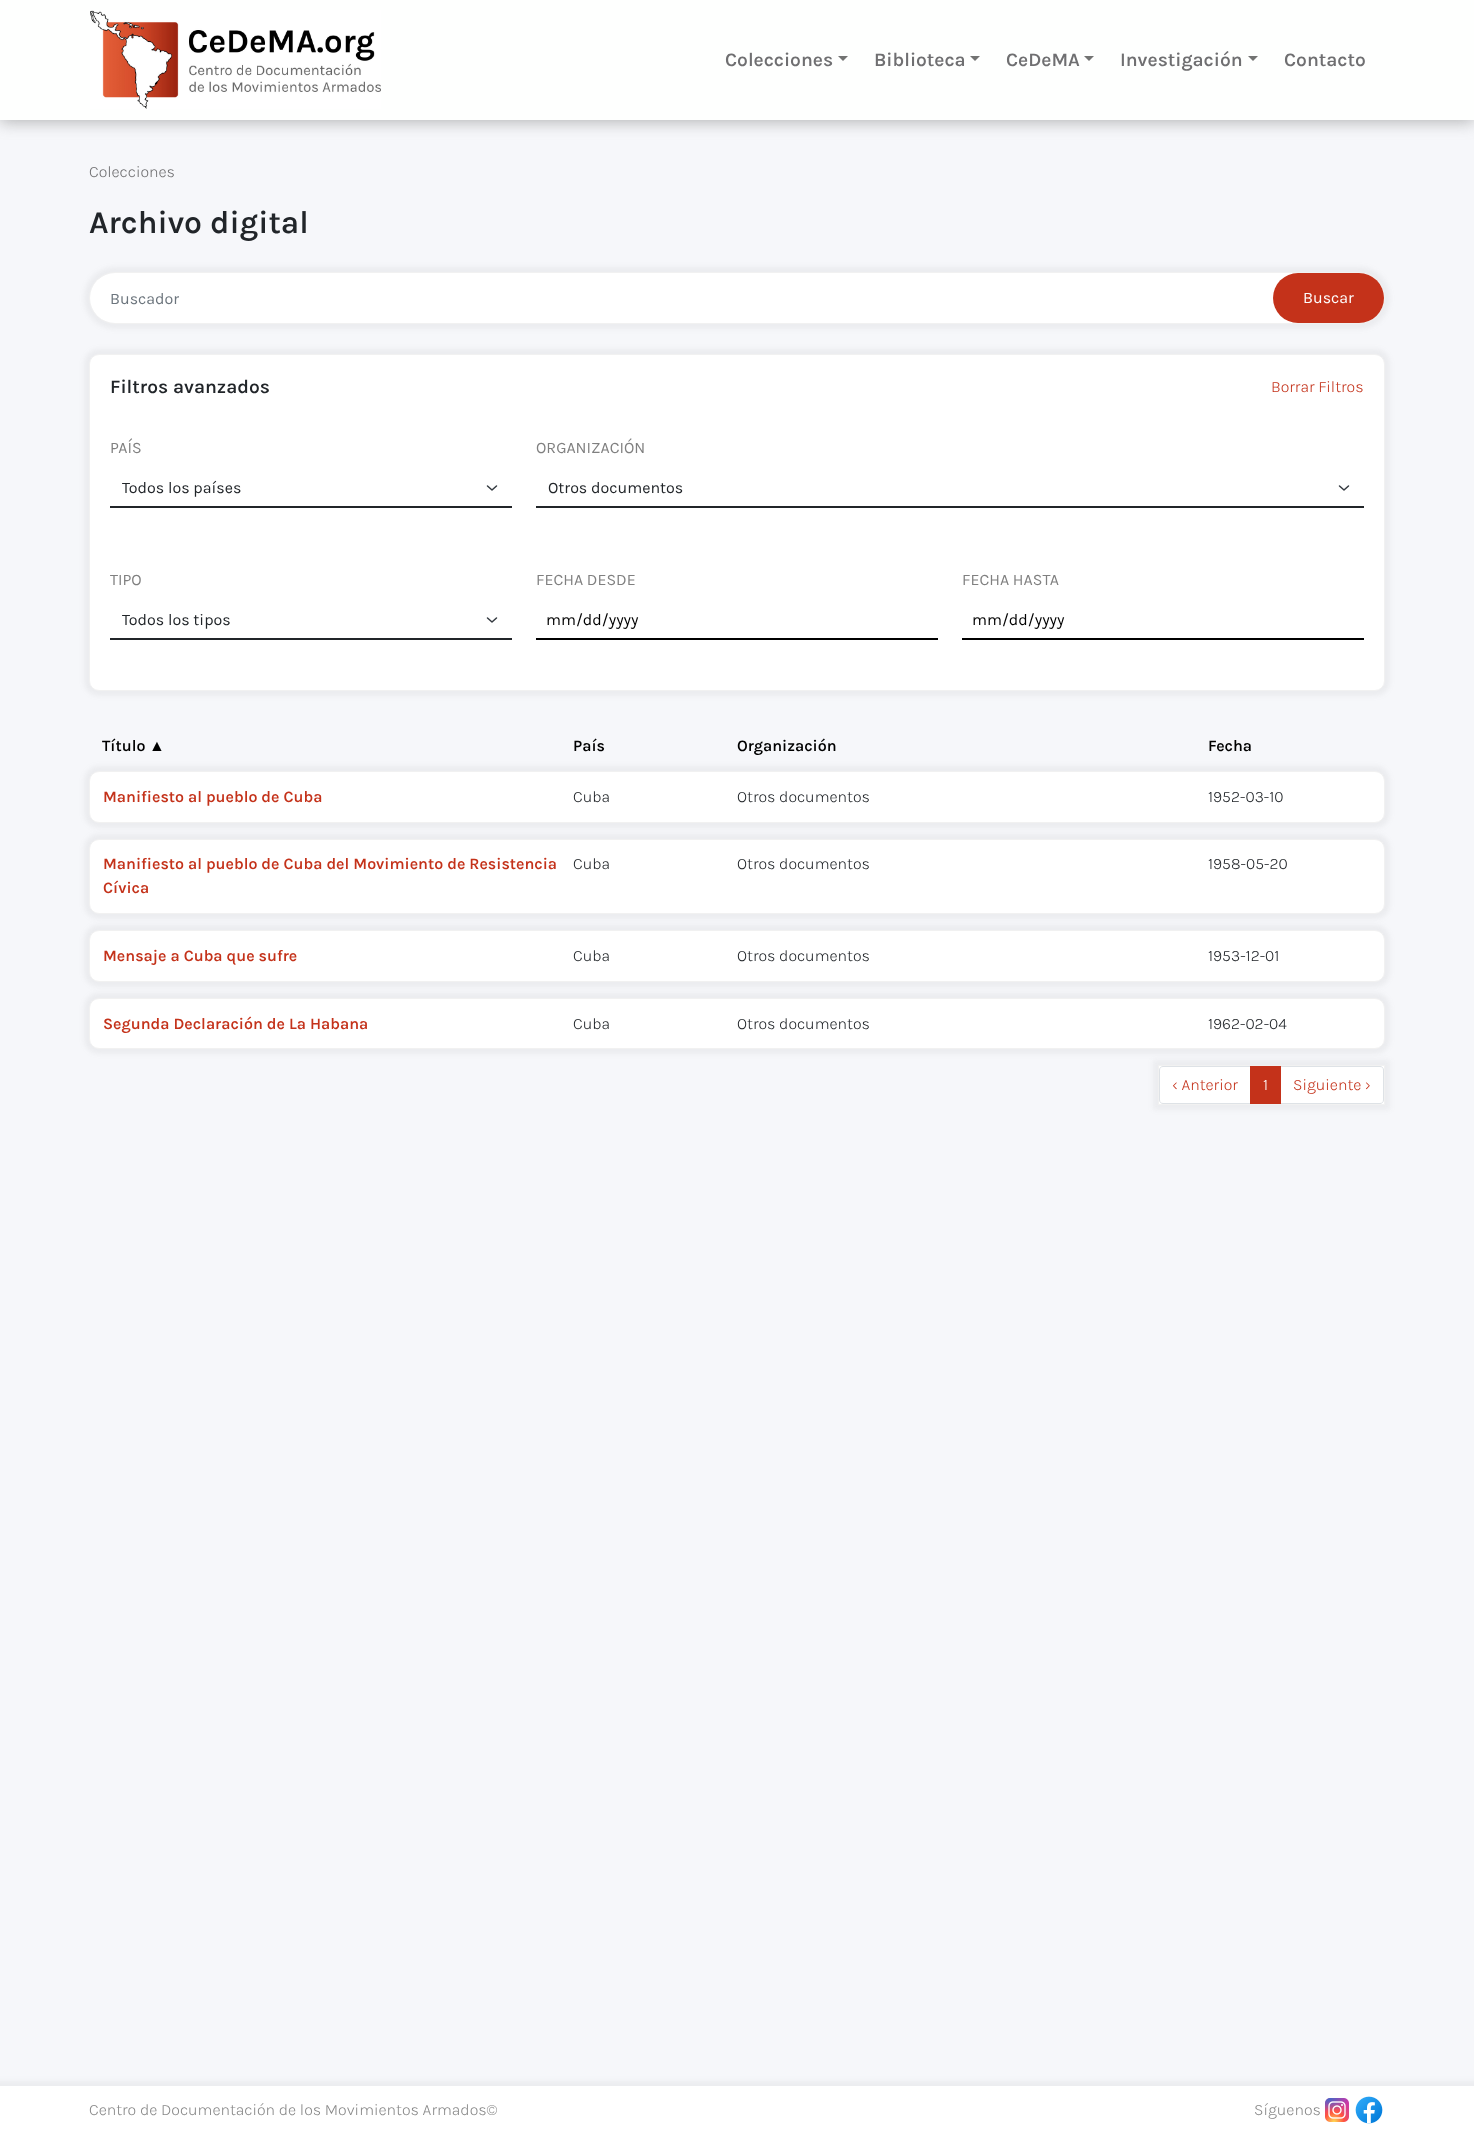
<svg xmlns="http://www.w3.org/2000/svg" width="1474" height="2134">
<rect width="100%" height="100%" fill="#f6f7fa"/>
<rect y="2" width="1474" height="120" fill="#6f6f6f80" filter="blur(8px)"/>
<rect width="1474" height="120" fill="#fefffe"/>
<image x="90" y="10" width="291" height="99" href="media/1.png"/>
<text x="725" y="66" style="font-family:Karla;font-size:19.25px;font-weight:600;fill:#6f6f71">Colecciones</text>
<path d="M838 56h10l-5 5z" fill="#727372"/>
<text x="874" y="66" style="font-family:Karla;font-size:19.25px;font-weight:600;fill:#6f6f71">Biblioteca</text>
<path d="M970 56h10l-5 5z" fill="#727372"/>
<text x="1006" y="66" style="font-family:Karla;font-size:19.25px;font-weight:600;fill:#6f6f71">CeDeMA</text>
<path d="M1084 56h10l-5 5z" fill="#727372"/>
<text x="1120" y="66" style="font-family:Karla;font-size:19.25px;font-weight:600;fill:#6f6f71">Investigación</text>
<path d="M1248 56h10l-5 5z" fill="#727372"/>
<text x="1284" y="66" style="font-family:Karla;font-size:19.25px;font-weight:600;fill:#6f6f71">Contacto</text>
<text x="89" y="177" style="font-family:Karla;font-size:16px;font-weight:300;fill:#6f6f71">Colecciones</text>
<text x="89" y="233" style="font-family:Karla;font-size:32px;font-weight:600;fill:#212529">Archivo digital</text>
<rect x="84" y="267" width="1306" height="62" rx="31" fill="#6d6d6d14" filter="blur(2.5px)"/>
<rect x="89.5" y="272.5" width="1295" height="51" rx="25.5" fill="none" stroke="#f1f1f1"/>
<rect x="90" y="273" width="1294" height="50" rx="25" fill="#fff"/>
<text x="110" y="304" style="font-family:Karla;font-size:16px;fill:#6c757d">Buscador</text>
<rect x="1273" y="273" width="111" height="50" rx="25" fill="#c4321a"/>
<text x="1303" y="303" style="font-family:Karla;font-size:16px;fill:#fff">Buscar</text>
<rect x="84" y="349" width="1306" height="347" rx="15" fill="#6d6d6d14" filter="blur(2.5px)"/>
<rect x="89.5" y="354.5" width="1295" height="336" rx="9.5" fill="#fff" stroke="#f1f1f1"/>
<text x="110" y="393" style="font-family:Karla;font-size:19.25px;font-weight:600;fill:#212529">Filtros avanzados</text>
<text x="1271" y="392" style="font-family:Karla;font-size:16px;font-weight:300;fill:#c4321a">Borrar Filtros</text>
<text x="110" y="453" style="font-family:Karla;font-size:16px;fill:#808080">PAÍS</text>
<path d="M487.5 486l4.5 4l4.5-4" fill="none" stroke="#343a40" stroke-width="1.5" stroke-linecap="round" stroke-linejoin="round"/>
<rect x="110" y="506" width="402" height="2" fill="#212529"/>
<text x="122" y="493" style="font-family:Karla;font-size:16px;fill:#212529">Todos los países</text>
<text x="536" y="453" style="font-family:Karla;font-size:16px;fill:#808080">ORGANIZACIÓN</text>
<path d="M1339.5 486l4.5 4l4.5-4" fill="none" stroke="#343a40" stroke-width="1.5" stroke-linecap="round" stroke-linejoin="round"/>
<rect x="536" y="506" width="828" height="2" fill="#212529"/>
<text x="548" y="493" style="font-family:Karla;font-size:16px;fill:#212529">Otros documentos</text>
<text x="110" y="585" style="font-family:Karla;font-size:16px;fill:#808080">TIPO</text>
<path d="M487.5 618l4.5 4l4.5-4" fill="none" stroke="#343a40" stroke-width="1.5" stroke-linecap="round" stroke-linejoin="round"/>
<rect x="110" y="638" width="402" height="2" fill="#212529"/>
<text x="122" y="625" style="font-family:Karla;font-size:16px;fill:#212529">Todos los tipos</text>
<text x="536" y="585" style="font-family:Karla;font-size:16px;fill:#808080">FECHA DESDE</text>
<rect x="536" y="638" width="402" height="2" fill="#000"/>
<text x="546" y="625" style="font-family:Karla;font-size:16px;fill:#000">mm/dd/yyyy</text>
<text x="962" y="585" style="font-family:Karla;font-size:16px;fill:#808080">FECHA HASTA</text>
<rect x="962" y="638" width="402" height="2" fill="#000"/>
<text x="972" y="625" style="font-family:Karla;font-size:16px;fill:#000">mm/dd/yyyy</text>
<text x="102" y="751" style="font-family:Karla;font-size:16px;font-weight:600;fill:#000">Título</text>
<text x="149" y="751" style="font-family:Liberation Sans;font-size:16px;font-weight:bold;fill:#000">▲</text>
<text x="573" y="751" style="font-family:Karla;font-size:16px;font-weight:600;fill:#000">País</text>
<text x="737" y="751" style="font-family:Karla;font-size:16px;font-weight:600;fill:#000">Organización</text>
<text x="1208" y="751" style="font-family:Karla;font-size:16px;font-weight:600;fill:#000">Fecha</text>
<rect x="84" y="766" width="1306" height="62" rx="15" fill="#6d6d6d14" filter="blur(2.5px)"/>
<rect x="89.5" y="771.5" width="1295" height="51" rx="9.5" fill="#fff" stroke="#f1f1f1"/>
<text x="103" y="802" style="font-family:Karla;font-size:16px;font-weight:600;fill:#c4321a">Manifiesto al pueblo de Cuba</text>
<text x="573" y="802" style="font-family:Karla;font-size:16px;font-weight:300;fill:#212529">Cuba</text>
<text x="737" y="802" style="font-family:Karla;font-size:16px;font-weight:300;fill:#212529">Otros documentos</text>
<text x="1208" y="802" style="font-family:Karla;font-size:16px;font-weight:300;fill:#212529">1952-03-10</text>
<rect x="84" y="834" width="1306" height="85" rx="15" fill="#6d6d6d14" filter="blur(2.5px)"/>
<rect x="89.5" y="839.5" width="1295" height="74" rx="9.5" fill="#fff" stroke="#f1f1f1"/>
<text x="103" y="869" style="font-family:Karla;font-size:16px;font-weight:600;fill:#c4321a">Manifiesto al pueblo de Cuba del Movimiento de Resistencia</text>
<text x="103" y="893" style="font-family:Karla;font-size:16px;font-weight:600;fill:#c4321a">Cívica</text>
<text x="573" y="869" style="font-family:Karla;font-size:16px;font-weight:300;fill:#212529">Cuba</text>
<text x="737" y="869" style="font-family:Karla;font-size:16px;font-weight:300;fill:#212529">Otros documentos</text>
<text x="1208" y="869" style="font-family:Karla;font-size:16px;font-weight:300;fill:#212529">1958-05-20</text>
<rect x="84" y="925" width="1306" height="62" rx="15" fill="#6d6d6d14" filter="blur(2.5px)"/>
<rect x="89.5" y="930.5" width="1295" height="51" rx="9.5" fill="#fff" stroke="#f1f1f1"/>
<text x="103" y="961" style="font-family:Karla;font-size:16px;font-weight:600;fill:#c4321a">Mensaje a Cuba que sufre</text>
<text x="573" y="961" style="font-family:Karla;font-size:16px;font-weight:300;fill:#212529">Cuba</text>
<text x="737" y="961" style="font-family:Karla;font-size:16px;font-weight:300;fill:#212529">Otros documentos</text>
<text x="1208" y="961" style="font-family:Karla;font-size:16px;font-weight:300;fill:#212529">1953-12-01</text>
<rect x="84" y="993" width="1306" height="61" rx="15" fill="#6d6d6d14" filter="blur(2.5px)"/>
<rect x="89.5" y="998.5" width="1295" height="50" rx="9.5" fill="#fff" stroke="#f1f1f1"/>
<text x="103" y="1029" style="font-family:Karla;font-size:16px;font-weight:600;fill:#c4321a">Segunda Declaración de La Habana</text>
<text x="573" y="1029" style="font-family:Karla;font-size:16px;font-weight:300;fill:#212529">Cuba</text>
<text x="737" y="1029" style="font-family:Karla;font-size:16px;font-weight:300;fill:#212529">Otros documentos</text>
<text x="1208" y="1029" style="font-family:Karla;font-size:16px;font-weight:300;fill:#212529">1962-02-04</text>
<rect x="1153" y="1060" width="237" height="50" fill="#6d6d6d14" filter="blur(2.5px)"/>
<rect x="1158.5" y="1065.5" width="226" height="39" fill="#fff" stroke="#f1f1f1"/>
<path d="M1163 1066.5h87.5v37h-87.5c-2 0-3.5-1.5-3.5-3.5v-30c0-2 1.5-3.5 3.5-3.5z" fill="none" stroke="#dee2e6"/>
<text x="1172" y="1090" style="font-family:Karla;font-size:16px;font-weight:300;fill:#c4321a">‹ Anterior</text>
<path d="M1280.5 1066.5h99.5c2 0 3.5 1.5 3.5 3.5v30c0 2-1.5 3.5-3.5 3.5h-99.5z" fill="none" stroke="#dee2e6"/>
<rect x="1250" y="1066" width="31" height="38" fill="#c4321a"/>
<text x="1263" y="1090" style="font-family:Karla;font-size:16px;font-weight:300;fill:#fff">1</text>
<text x="1293" y="1090" style="font-family:Karla;font-size:16px;font-weight:300;fill:#c4321a">Siguiente ›</text>
<rect x="-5" y="2081" width="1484" height="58" fill="#6d6d6d14" filter="blur(2.5px)"/>
<rect y="2086" width="1474" height="48" fill="#fff"/>
<text x="89" y="2115" style="font-family:Karla;font-size:16px;font-weight:300;fill:#888">Centro de Documentación de los Movimientos Armados©</text>
<text x="1254" y="2115" style="font-family:Karla;font-size:16px;font-weight:300;fill:#888">Síguenos</text>
<image x="1325" y="2098" width="24" height="24" href="media/2.png"/>
<image x="1355" y="2096" width="28" height="28" href="media/3.png"/>
</svg>
